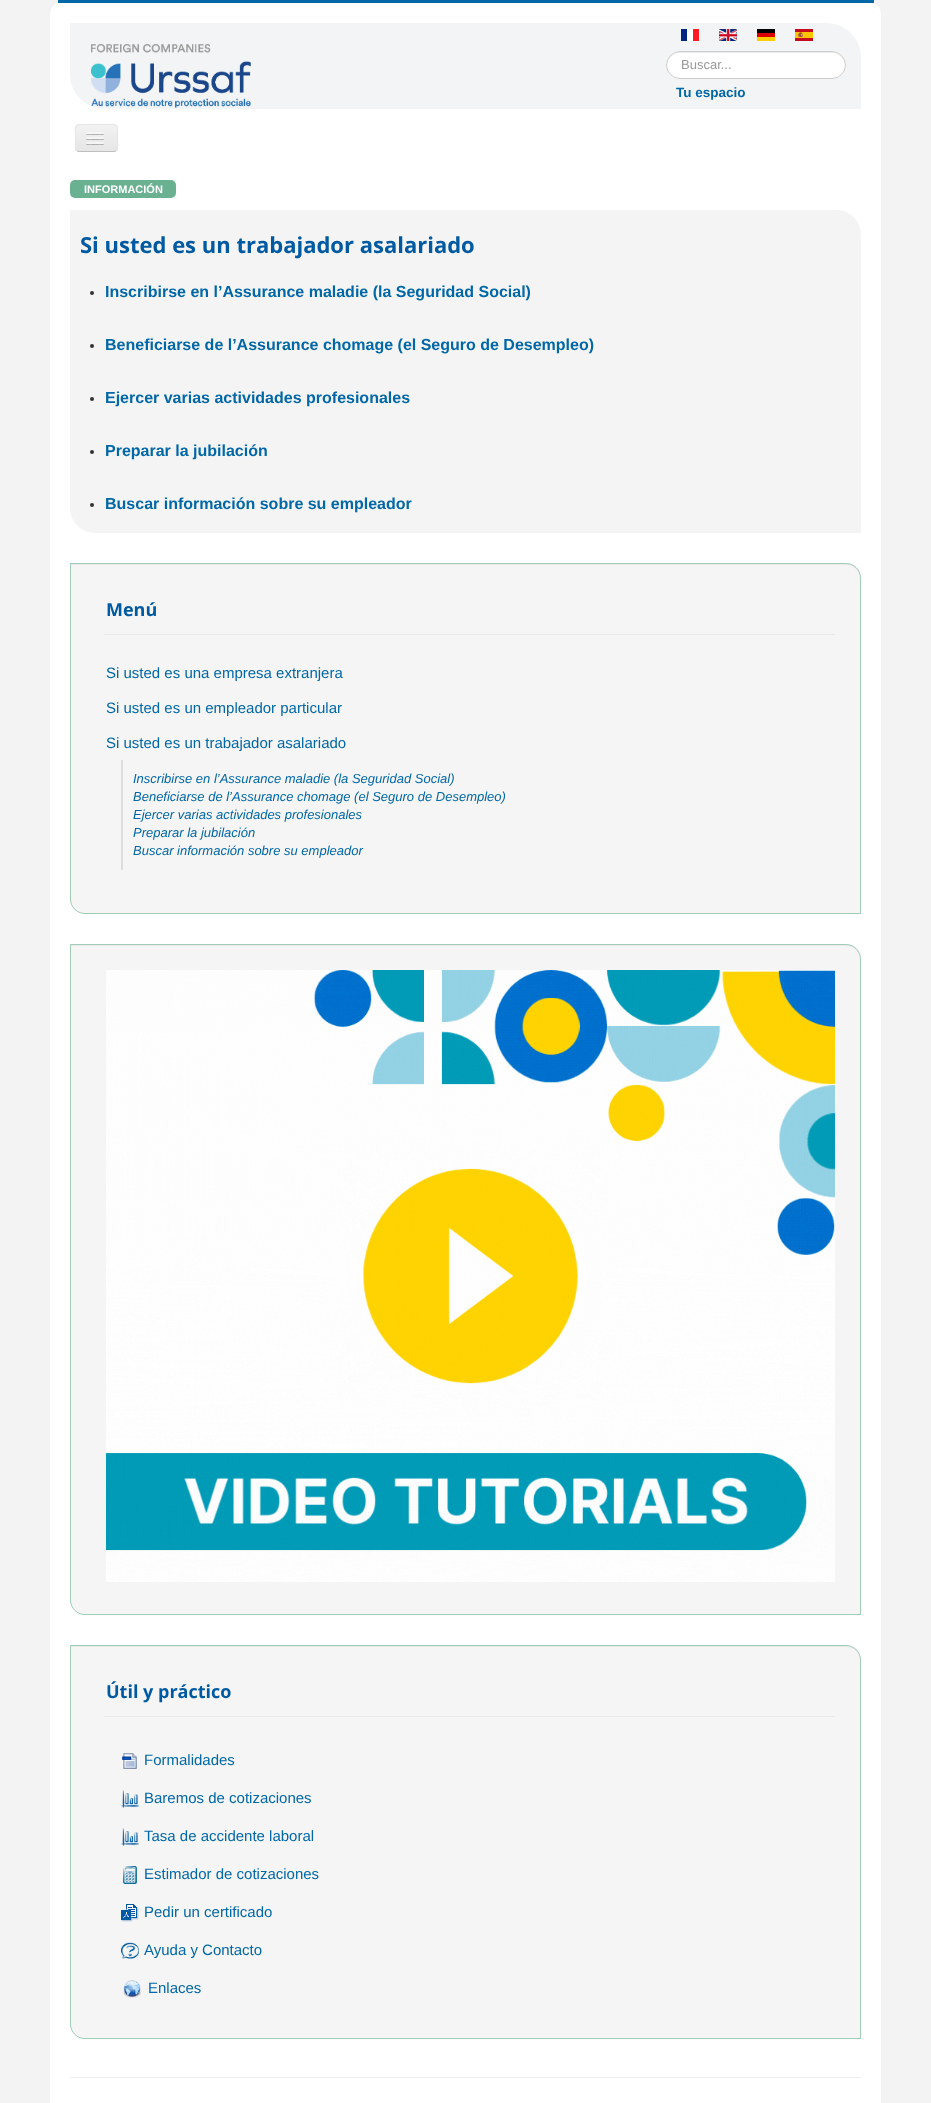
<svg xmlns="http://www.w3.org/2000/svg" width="931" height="2103">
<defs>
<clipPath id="clip1"><rect x="75" y="124" width="43" height="28" rx="4"/></clipPath>
<linearGradient id="g1" gradientUnits="userSpaceOnUse" x1="97" y1="125" x2="97" y2="151"><stop offset="0" stop-color="#f2f2f2"/><stop offset="1" stop-color="#e6e6e6"/></linearGradient>
</defs>
<rect width="100%" height="100%" fill="#f3f3f3"/>
<rect x="50" width="831" height="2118" rx="15" fill="#fff"/>
<rect x="58" width="816" height="3" fill="#0267a6"/>
<path d="M70 23h756c19.5 0 35 15.5 35 35v51h-756c-19.5 0-35-15.5-35-35z" fill="#f2f4f5"/>
<image x="91" y="44" width="160" height="64" href="media/1.png"/>
<image x="681" y="29" width="18" height="12" href="media/2.png"/>
<image x="719" y="29" width="18" height="12" href="media/3.png"/>
<image x="757" y="29" width="18" height="12" href="media/4.png"/>
<image x="795" y="29" width="18" height="12" href="media/5.png"/>
<rect x="666" y="51" width="180" height="28" rx="14" fill="#fff"/>
<path d="M680 53h152c7 0 13 6 13 13c1-20-29-14-38-14h-102c-9 0-39-6-38 14c0-7 6-13 13-13z" fill="#ececec"/>
<rect x="666.5" y="51.5" width="179" height="27" rx="13.5" fill="none" stroke="#ccc"/>
<text x="681" y="69" style="font-family:Liberation Sans;font-size:13px;fill:#999">Buscar...</text>
<text x="676" y="97" style="font-family:Liberation Sans;font-size:13.5px;font-weight:bold;fill:#0267a6">Tu espacio</text>
<rect x="75" y="124" width="43" height="28" rx="4" fill="#ededed"/>
<g clip-path="url(#clip1)">
<rect x="75" y="125" width="43" height="26" fill="url(#g1)"/>
</g>
<path d="M116.5 150.5c-.5 .5-1.5 1-2.5 1h-35c-1 0-2-.5-2.5-1" fill="none" stroke="#bfbfbf"/>
<path d="M76.5 150.5c-2-2.5-1-10-1-12.5c0-12-2.5-13.5 9.5-13.5h23c12 0 9.5 1.5 9.5 13.5c0 2.5 1 10-1 12.5" fill="none" stroke="#e6e6e6"/>
<path d="M86 133.5c-1 2 3.5 1.5 3.5 1.5h11c0 0 4.5 .5 3.5-1.5c-1 1-7.5 .5-9 .5c-1.5 0-8 .5-9-.5z" fill="#b3b3b3"/>
<rect x="86" y="132" width="18" height="2" rx="1" fill="#f5f5f5"/>
<path d="M86 138.5c-1 2 3.5 1.5 3.5 1.5h11c0 0 4.5 .5 3.5-1.5c-1 1-7.5 .5-9 .5c-1.5 0-8 .5-9-.5z" fill="#b0b0b0"/>
<rect x="86" y="137" width="18" height="2" rx="1" fill="#f5f5f5"/>
<path d="M86 143.5c-1 2 3.5 1.5 3.5 1.5h11c0 0 4.5 .5 3.5-1.5c-1 1-7.5 .5-9 .5c-1.5 0-8 .5-9-.5z" fill="#afafaf"/>
<rect x="86" y="142" width="18" height="2" rx="1" fill="#f5f5f5"/>
<rect x="70" y="180" width="106" height="18" rx="5" fill="#6ab192"/>
<text x="84" y="193" style="font-family:Liberation Sans;font-size:11px;font-weight:bold;fill:#fff">INFORMACIÓN</text>
<path d="M70 210h766c14 0 25 11 25 25v298h-766c-14 0-25-11-25-25z" fill="#f4f4f4"/>
<text x="80" y="253" style="font-family:Open Sans;font-size:22px;font-weight:bold;fill:#005aa1">Si usted es un trabajador asalariado</text>
<circle cx="92" cy="293" r="2" fill="#333"/>
<text x="105" y="297" style="font-family:Liberation Sans;font-size:16px;font-weight:bold;fill:#0267a6">Inscribirse en l’Assurance maladie (la Seguridad Social)</text>
<circle cx="92" cy="346" r="2" fill="#333"/>
<text x="105" y="350" style="font-family:Liberation Sans;font-size:16px;font-weight:bold;fill:#0267a6">Beneficiarse de l’Assurance chomage (el Seguro de Desempleo)</text>
<circle cx="92" cy="399" r="2" fill="#333"/>
<text x="105" y="403" style="font-family:Liberation Sans;font-size:16px;font-weight:bold;fill:#0267a6">Ejercer varias actividades profesionales</text>
<circle cx="92" cy="452" r="2" fill="#333"/>
<text x="105" y="456" style="font-family:Liberation Sans;font-size:16px;font-weight:bold;fill:#0267a6">Preparar la jubilación</text>
<circle cx="92" cy="505" r="2" fill="#333"/>
<text x="105" y="509" style="font-family:Liberation Sans;font-size:16px;font-weight:bold;fill:#0267a6">Buscar información sobre su empleador</text>
<path d="M70 563h776c8.5 0 15 6.5 15 15v336h-776c-8.5 0-15-6.5-15-15z" fill="#f5f5f5"/>
<path d="M71 565h775c8 0 14 6 14 14v-1c0-8-6-14-14-14h-775z" fill="#e9e9e9"/>
<path d="M70.5 563.5h775.5c8 0 14.5 6.5 14.5 14.5v335.5h-775.5c-8 0-14.5-6.5-14.5-14.5z" fill="none" stroke="#3296696e"/>
<rect x="104" y="634" width="731" height="1" fill="#e8e8e8"/>
<text x="106" y="616" style="font-family:Open Sans;font-size:18px;font-weight:bold;fill:#005aa1">Menú</text>
<text x="106" y="678" style="font-family:Liberation Sans;font-size:15px;fill:#0267a6">Si usted es una empresa extranjera</text>
<text x="106" y="713" style="font-family:Liberation Sans;font-size:15px;fill:#0267a6">Si usted es un empleador particular</text>
<text x="106" y="748" style="font-family:Liberation Sans;font-size:15px;fill:#0267a6">Si usted es un trabajador asalariado</text>
<rect x="121" y="760" width="2" height="110" fill="#ddd"/>
<text x="133" y="783" style="font-family:Liberation Sans;font-size:13px;font-style:italic;fill:#0267a6">Inscribirse en l’Assurance maladie (la Seguridad Social)</text>
<text x="133" y="801" style="font-family:Liberation Sans;font-size:13px;font-style:italic;fill:#0267a6">Beneficiarse de l’Assurance chomage (el Seguro de Desempleo)</text>
<text x="133" y="819" style="font-family:Liberation Sans;font-size:13px;font-style:italic;fill:#0267a6">Ejercer varias actividades profesionales</text>
<text x="133" y="837" style="font-family:Liberation Sans;font-size:13px;font-style:italic;fill:#0267a6">Preparar la jubilación</text>
<text x="133" y="855" style="font-family:Liberation Sans;font-size:13px;font-style:italic;fill:#0267a6">Buscar información sobre su empleador</text>
<path d="M70 944h776c8.5 0 15 6.5 15 15v656h-776c-8.5 0-15-6.5-15-15z" fill="#f5f5f5"/>
<path d="M71 946h775c8 0 14 6 14 14v-1c0-8-6-14-14-14h-775z" fill="#e9e9e9"/>
<path d="M70.5 944.5h775.5c8 0 14.5 6.5 14.5 14.5v655.5h-775.5c-8 0-14.5-6.5-14.5-14.5z" fill="none" stroke="#3296696e"/>
<image x="106" y="970" width="729" height="612" href="media/6.png"/>
<path d="M70 1645h776c8.5 0 15 6.5 15 15v379h-776c-8.5 0-15-6.5-15-15z" fill="#f5f5f5"/>
<path d="M71 1647h775c8 0 14 6 14 14v-1c0-8-6-14-14-14h-775z" fill="#e9e9e9"/>
<path d="M70.5 1645.5h775.5c8 0 14.5 6.5 14.5 14.5v378.5h-775.5c-8 0-14.5-6.5-14.5-14.5z" fill="none" stroke="#3296696e"/>
<rect x="104" y="1716" width="731" height="1" fill="#e8e8e8"/>
<text x="106" y="1698" style="font-family:Open Sans;font-size:18px;font-weight:bold;fill:#005aa1">Útil y práctico</text>
<image x="122" y="1753" width="15" height="16" href="media/7.png"/>
<text x="144" y="1765" style="font-family:Liberation Sans;font-size:15px;fill:#0267a6">Formalidades</text>
<image x="121" y="1790" width="18" height="18" href="media/8.png"/>
<text x="144" y="1803" style="font-family:Liberation Sans;font-size:15px;fill:#0267a6">Baremos de cotizaciones</text>
<image x="121" y="1828" width="18" height="18" href="media/8.png"/>
<text x="144" y="1841" style="font-family:Liberation Sans;font-size:15px;fill:#0267a6">Tasa de accidente laboral</text>
<image x="123" y="1866" width="14" height="18" href="media/9.png"/>
<text x="144" y="1879" style="font-family:Liberation Sans;font-size:15px;fill:#0267a6">Estimador de cotizaciones</text>
<image x="121" y="1904" width="18" height="18" href="media/10.png"/>
<text x="144" y="1917" style="font-family:Liberation Sans;font-size:15px;fill:#0267a6">Pedir un certificado</text>
<image x="121" y="1942" width="18" height="17" href="media/11.png"/>
<text x="144" y="1955" style="font-family:Liberation Sans;font-size:15px;fill:#0267a6">Ayuda y Contacto</text>
<image x="123" y="1980" width="18" height="18" href="media/12.png"/>
<text x="148" y="1993" style="font-family:Liberation Sans;font-size:15px;fill:#0267a6">Enlaces</text>
<rect x="70" y="2077" width="791" height="1" fill="#eee"/>
</svg>
